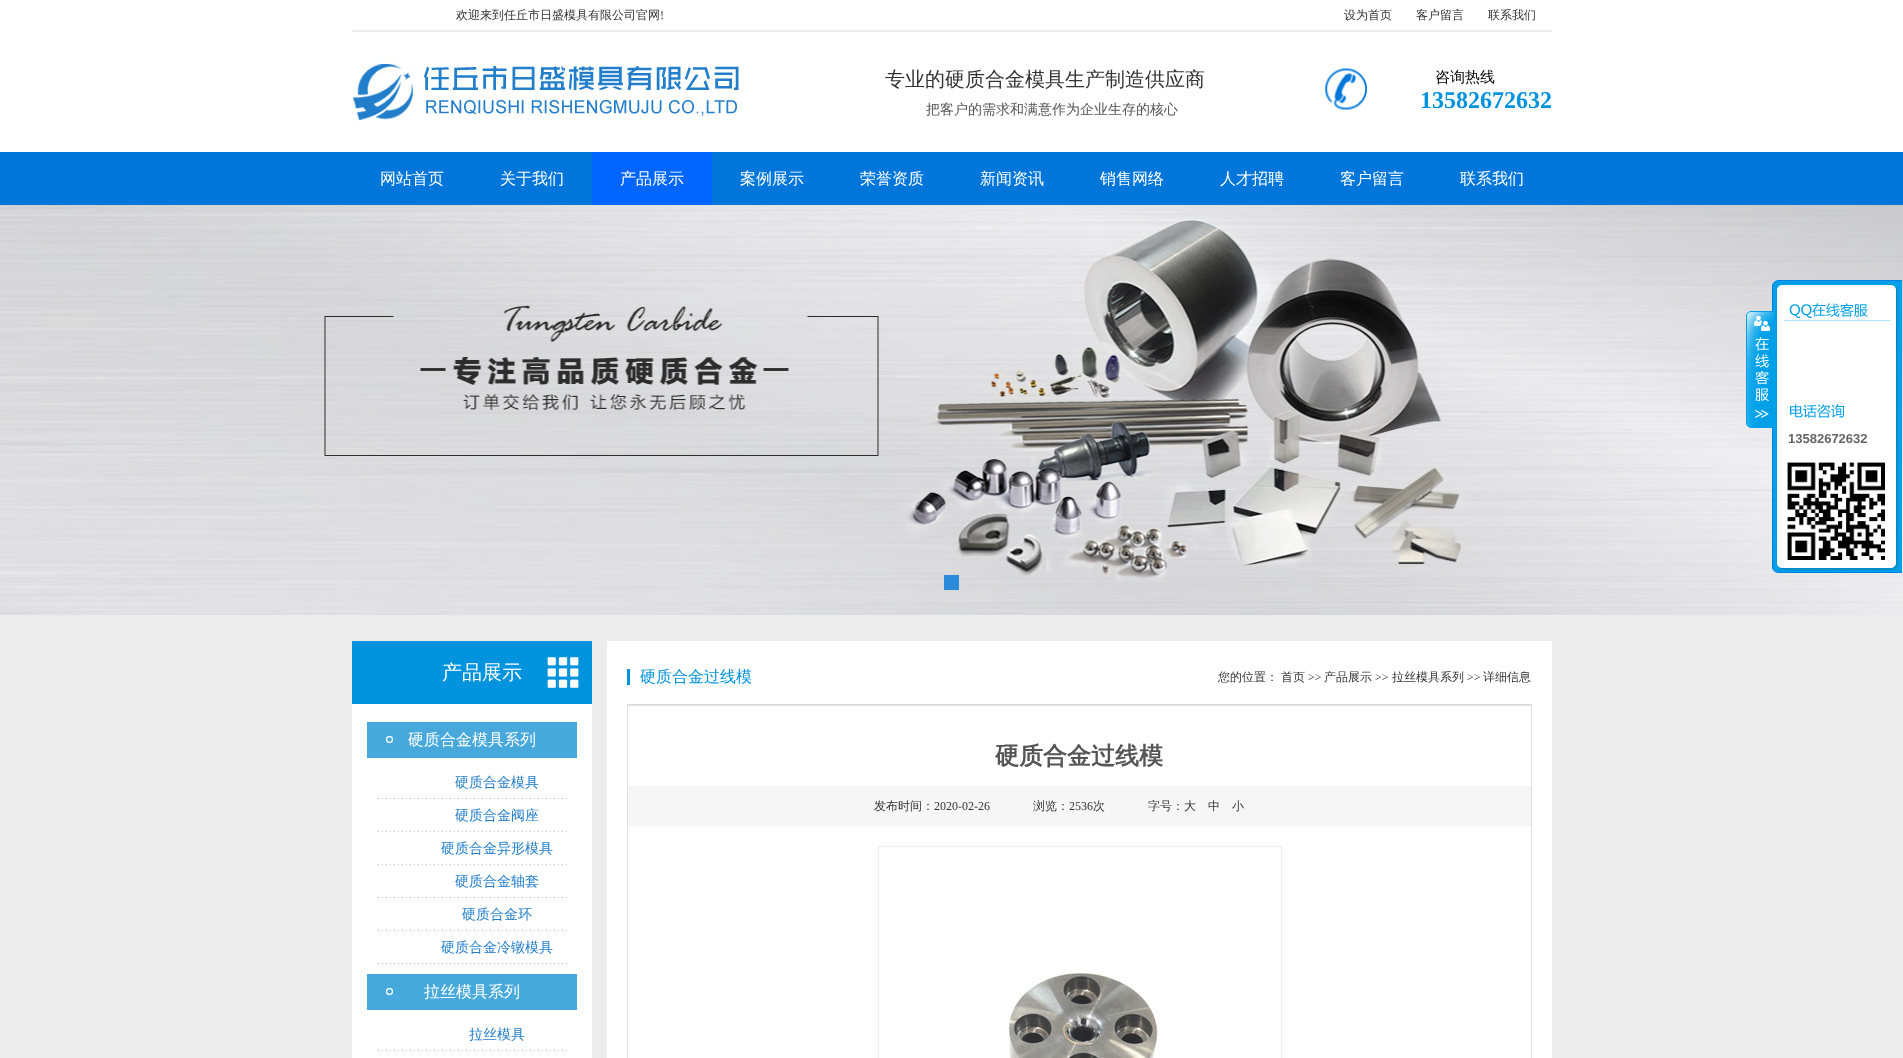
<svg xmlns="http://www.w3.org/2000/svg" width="1903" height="1058">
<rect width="100%" height="100%" fill="#fff"/>
<rect x="352" y="30" width="1200" height="2" fill="#ededed"/>
<text x="456" y="19" style="font-family:WenQuanYi Zen Hei;font-size:12px;font-weight:500;fill:#333">欢迎来到任丘市日盛模具有限公司官网</text>
<text x="660" y="19" style="font-family:Liberation Serif;font-size:12px;fill:#333">!</text>
<text x="1344" y="19" style="font-family:WenQuanYi Zen Hei;font-size:12px;font-weight:500;fill:#333">设为首页</text>
<text x="1416" y="19" style="font-family:WenQuanYi Zen Hei;font-size:12px;font-weight:500;fill:#333">客户留言</text>
<text x="1488" y="19" style="font-family:WenQuanYi Zen Hei;font-size:12px;font-weight:500;fill:#333">联系我们</text>
<image x="352" y="59" width="392" height="63" href="media/1.png"/>
<text x="885" y="86" style="font-family:WenQuanYi Zen Hei;font-size:20px;font-weight:500;fill:#333">专业的硬质合金模具生产制造供应商</text>
<text x="926" y="114" style="font-family:WenQuanYi Zen Hei;font-size:14px;font-weight:500;fill:#555">把客户的需求和满意作为企业生存的核心</text>
<image x="1325" y="68" width="42" height="42" href="media/2.png"/>
<text x="1435" y="82" style="font-family:WenQuanYi Zen Hei;font-size:15px;font-weight:500;fill:#000">咨询热线</text>
<text x="1420" y="108" style="font-family:Liberation Serif;font-size:24px;font-weight:bold;fill:#0193de">13582672632</text>
<rect y="152" width="1903" height="53" fill="#0076db"/>
<text x="380" y="184" style="font-family:WenQuanYi Zen Hei;font-size:16px;font-weight:500;fill:#fff">网站首页</text>
<text x="500" y="184" style="font-family:WenQuanYi Zen Hei;font-size:16px;font-weight:500;fill:#fff">关于我们</text>
<rect x="592" y="152" width="120" height="53" fill="#06f"/>
<text x="620" y="184" style="font-family:WenQuanYi Zen Hei;font-size:16px;font-weight:500;fill:#fff">产品展示</text>
<text x="740" y="184" style="font-family:WenQuanYi Zen Hei;font-size:16px;font-weight:500;fill:#fff">案例展示</text>
<text x="860" y="184" style="font-family:WenQuanYi Zen Hei;font-size:16px;font-weight:500;fill:#fff">荣誉资质</text>
<text x="980" y="184" style="font-family:WenQuanYi Zen Hei;font-size:16px;font-weight:500;fill:#fff">新闻资讯</text>
<text x="1100" y="184" style="font-family:WenQuanYi Zen Hei;font-size:16px;font-weight:500;fill:#fff">销售网络</text>
<text x="1220" y="184" style="font-family:WenQuanYi Zen Hei;font-size:16px;font-weight:500;fill:#fff">人才招聘</text>
<text x="1340" y="184" style="font-family:WenQuanYi Zen Hei;font-size:16px;font-weight:500;fill:#fff">客户留言</text>
<text x="1460" y="184" style="font-family:WenQuanYi Zen Hei;font-size:16px;font-weight:500;fill:#fff">联系我们</text>
<image x="0" y="205" width="1903" height="410" href="media/3.png"/>
<rect x="944" y="575" width="15" height="15" fill="#0076dbcc"/>
<image x="1772" y="290" width="130" height="274" href="media/7.png"/>
<image x="1746" y="311" width="28" height="117" href="media/4.png"/>
<image x="1772" y="564" width="130" height="9" href="media/5.png"/>
<image x="1772" y="280" width="130" height="10" href="media/6.png"/>
<rect x="1784" y="320" width="106" height="1" fill="#ace5f9"/>
<image x="1789" y="303" width="79" height="15" href="media/8.png"/>
<image x="1790" y="404" width="55" height="14" href="media/9.png"/>
<text x="1788" y="443" style="font-family:Liberation Sans;font-size:13px;font-weight:bold;fill:#666">13582672632</text>
<image x="1787" y="462" width="98" height="98" href="media/10.png"/>
<rect y="615" width="1903" height="443" fill="#ececec"/>
<rect x="352" y="641" width="240" height="63" fill="#0193de"/>
<image x="547" y="657" width="32" height="31" href="media/11.png"/>
<text x="442" y="679" style="font-family:WenQuanYi Zen Hei;font-size:20px;font-weight:500;fill:#fff">产品展示</text>
<rect x="352" y="704" width="240" height="354" fill="#fff"/>
<image x="367" y="722" width="210" height="36" href="media/12.png"/>
<text x="408" y="745" style="font-family:WenQuanYi Zen Hei;font-size:16px;font-weight:500;fill:#fff">硬质合金模具系列</text>
<image x="378" y="798" width="189" height="1" href="media/13.png"/>
<text x="455" y="787" style="font-family:WenQuanYi Zen Hei;font-size:14px;font-weight:500;fill:#227ecb">硬质合金模具</text>
<image x="378" y="831" width="189" height="1" href="media/13.png"/>
<text x="455" y="820" style="font-family:WenQuanYi Zen Hei;font-size:14px;font-weight:500;fill:#227ecb">硬质合金阀座</text>
<image x="378" y="864" width="189" height="1" href="media/13.png"/>
<text x="441" y="853" style="font-family:WenQuanYi Zen Hei;font-size:14px;font-weight:500;fill:#227ecb">硬质合金异形模具</text>
<image x="378" y="897" width="189" height="1" href="media/13.png"/>
<text x="455" y="886" style="font-family:WenQuanYi Zen Hei;font-size:14px;font-weight:500;fill:#227ecb">硬质合金轴套</text>
<image x="378" y="930" width="189" height="1" href="media/13.png"/>
<text x="462" y="919" style="font-family:WenQuanYi Zen Hei;font-size:14px;font-weight:500;fill:#227ecb">硬质合金环</text>
<image x="378" y="963" width="189" height="1" href="media/13.png"/>
<text x="441" y="952" style="font-family:WenQuanYi Zen Hei;font-size:14px;font-weight:500;fill:#227ecb">硬质合金冷镦模具</text>
<image x="367" y="974" width="210" height="36" href="media/12.png"/>
<text x="424" y="997" style="font-family:WenQuanYi Zen Hei;font-size:16px;font-weight:500;fill:#fff">拉丝模具系列</text>
<image x="378" y="1050" width="189" height="1" href="media/13.png"/>
<text x="469" y="1039" style="font-family:WenQuanYi Zen Hei;font-size:14px;font-weight:500;fill:#227ecb">拉丝模具</text>
<rect x="607" y="641" width="945" height="417" fill="#fff"/>
<rect x="627" y="704" width="905" height="1" fill="#dbdbdb"/>
<rect x="627" y="669" width="3" height="16" fill="#0193de"/>
<text x="640" y="682" style="font-family:WenQuanYi Zen Hei;font-size:16px;font-weight:500;fill:#0193de">硬质合金过线模</text>
<text x="1218" y="681" style="font-family:WenQuanYi Zen Hei;font-size:12px;font-weight:500;fill:#333">您的位置：</text>
<text x="1281" y="681" style="font-family:WenQuanYi Zen Hei;font-size:12px;font-weight:500;fill:#333">首页</text>
<text x="1308" y="681" style="font-family:Liberation Serif;font-size:12px;fill:#333">&gt;&gt;</text>
<text x="1324" y="681" style="font-family:WenQuanYi Zen Hei;font-size:12px;font-weight:500;fill:#333">产品展示</text>
<text x="1375" y="681" style="font-family:Liberation Serif;font-size:12px;fill:#333">&gt;&gt;</text>
<text x="1392" y="681" style="font-family:WenQuanYi Zen Hei;font-size:12px;font-weight:500;fill:#333">拉丝模具系列</text>
<text x="1467" y="681" style="font-family:Liberation Serif;font-size:12px;fill:#333">&gt;&gt;</text>
<text x="1483" y="681" style="font-family:WenQuanYi Zen Hei;font-size:12px;font-weight:500;fill:#333">详细信息</text>
<rect x="627.5" y="705.5" width="904" height="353" fill="none" stroke="#e2e2e2"/>
<text x="995" y="764" style="font-family:WenQuanYi Zen Hei;font-size:24px;font-weight:bold;fill:#555">硬质合金过线模</text>
<rect x="628" y="786" width="903" height="40" fill="#f6f6f6"/>
<text x="874" y="810" style="font-family:WenQuanYi Zen Hei;font-size:12px;font-weight:500;fill:#333">发布时间：</text>
<text x="934" y="810" style="font-family:Liberation Serif;font-size:12px;fill:#333">2020-02-26</text>
<text x="1033" y="810" style="font-family:WenQuanYi Zen Hei;font-size:12px;font-weight:500;fill:#333">浏览：</text>
<text x="1069" y="810" style="font-family:Liberation Serif;font-size:12px;fill:#333">2536</text>
<text x="1093" y="810" style="font-family:WenQuanYi Zen Hei;font-size:12px;font-weight:500;fill:#333">次</text>
<text x="1148" y="810" style="font-family:WenQuanYi Zen Hei;font-size:12px;font-weight:500;fill:#333">字号：大</text>
<text x="1208" y="810" style="font-family:WenQuanYi Zen Hei;font-size:12px;font-weight:500;fill:#333">中</text>
<text x="1232" y="810" style="font-family:WenQuanYi Zen Hei;font-size:12px;font-weight:500;fill:#333">小</text>
<rect x="878.5" y="846.5" width="403" height="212" fill="none" stroke="#ededed"/>
<image x="1008" y="970" width="151" height="88" href="media/14.png"/>
</svg>
